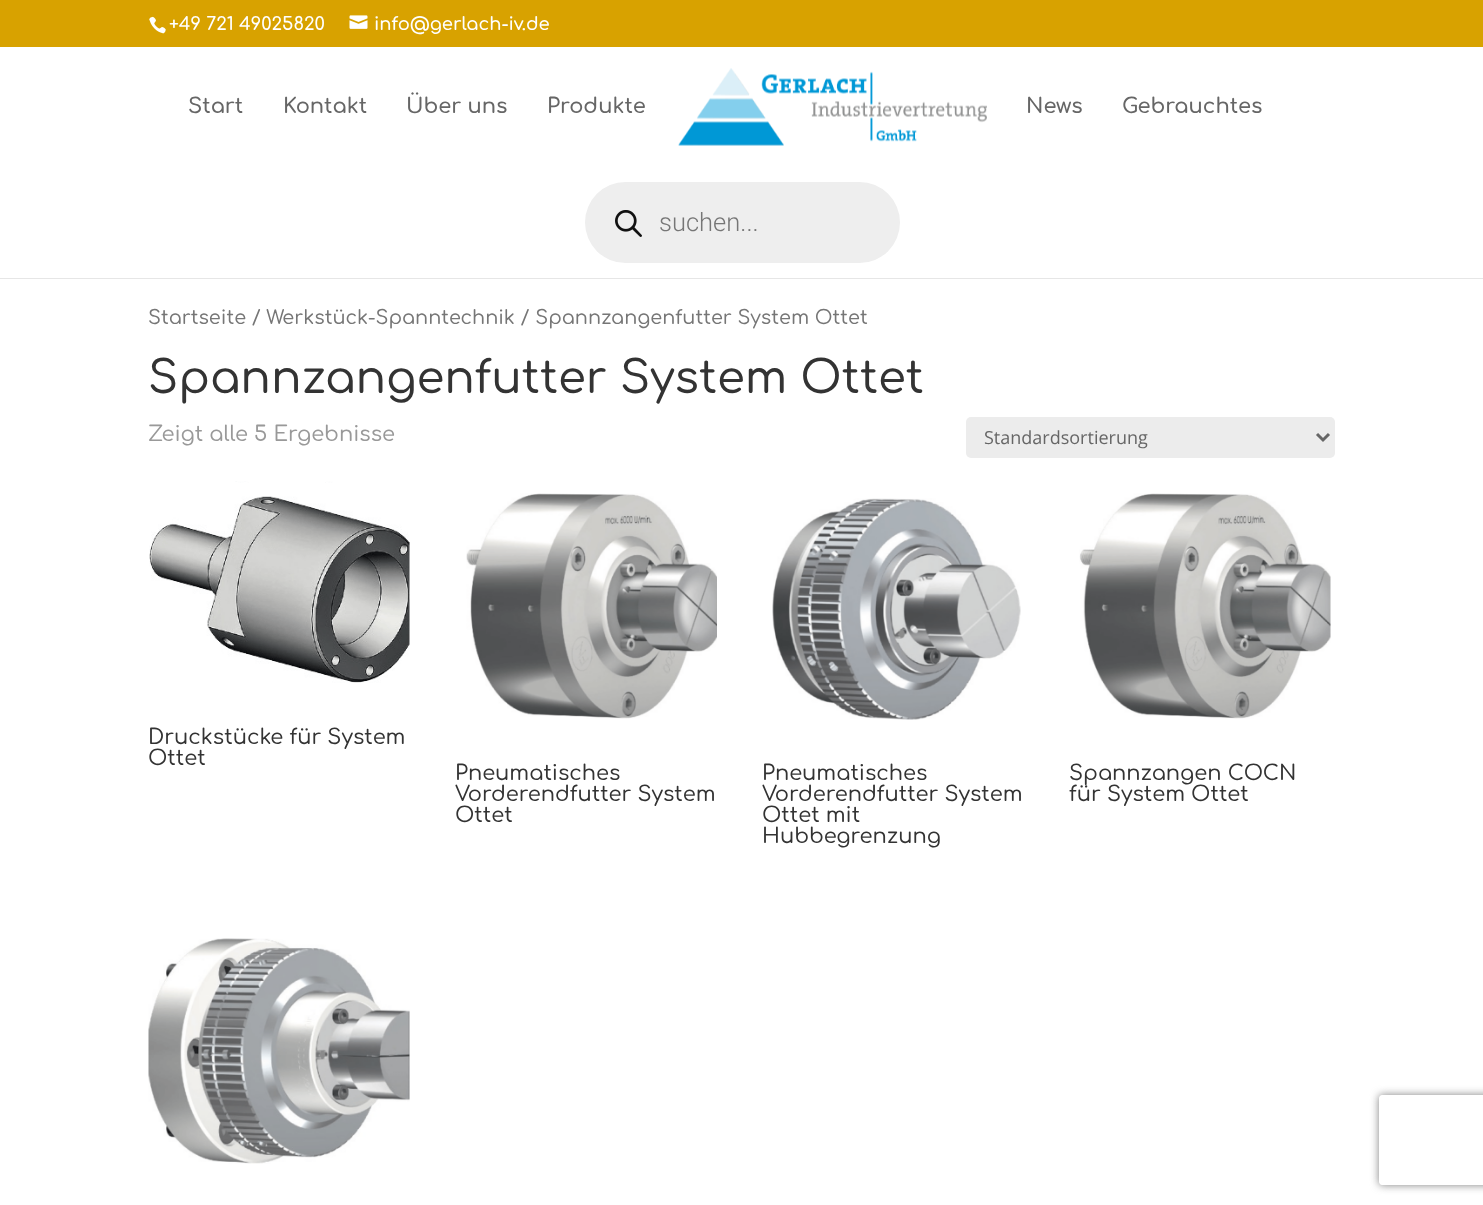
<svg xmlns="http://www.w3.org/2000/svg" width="1483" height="1205">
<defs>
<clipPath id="clip1"><path d="M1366 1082h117v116h-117zm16 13h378c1.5 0 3 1.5 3 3v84c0 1.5-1.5 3-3 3h-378c-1.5 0-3-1.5-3-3v-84c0-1.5 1.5-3 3-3z" clip-rule="evenodd"/></clipPath>
</defs>
<rect width="100%" height="100%" fill="#fff"/>
<rect width="1483" height="47" fill="#d8a200"/>
<image x="149" y="16" width="17" height="18" href="media/1.png"/>
<text x="169" y="30" style="font-family:Comfortaa;font-size:18px;font-weight:600;fill:#fff">+49 721 49025820</text>
<image x="349" y="15" width="19" height="14" href="media/2.png"/>
<text x="374" y="30" style="font-family:Comfortaa;font-size:18px;font-weight:600;fill:#fff">info@gerlach-iv.de</text>
<path d="M0 278v1h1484v-231v230z" fill="#e6e6e6"/>
<text x="188" y="113" style="font-family:Comfortaa;font-size:21px;font-weight:600;fill:#666">Start</text>
<text x="283" y="113" style="font-family:Comfortaa;font-size:21px;font-weight:600;fill:#666">Kontakt</text>
<text x="406" y="113" style="font-family:Comfortaa;font-size:21px;font-weight:600;fill:#666">Über uns</text>
<text x="547" y="113" style="font-family:Comfortaa;font-size:21px;font-weight:600;fill:#666">Produkte</text>
<image x="678" y="68" width="309" height="78" href="media/3.png"/>
<text x="1026" y="113" style="font-family:Comfortaa;font-size:21px;font-weight:600;fill:#666">News</text>
<text x="1122" y="113" style="font-family:Comfortaa;font-size:21px;font-weight:600;fill:#666">Gebrauchtes</text>
<rect x="585" y="182" width="315" height="81" rx="40.5" fill="#eee"/>
<image x="615" y="210" width="27" height="27" href="media/4.png"/>
<text x="659" y="231" style="font-family:Roboto;font-size:25.5px;font-weight:300;fill:#767676">suchen...</text>
<text x="148" y="324" style="font-family:Comfortaa;font-size:19.3px;font-weight:500;fill:#767676">Startseite / Werkstück-Spanntechnik / Spannzangenfutter System Ottet</text>
<text x="148" y="393" style="font-family:Comfortaa;font-size:45px;font-weight:500;fill:#333">Spannzangenfutter System Ottet</text>
<text x="148" y="441" style="font-family:Comfortaa;font-size:21px;font-weight:500;fill:#999">Zeigt alle 5 Ergebnisse</text>
<rect x="966" y="417" width="369" height="41" rx="5" fill="#ececec"/>
<path d="M1317 434l6 6l6-6" fill="none" stroke="#666" stroke-width="3"/>
<text x="984" y="444" style="font-family:Open Sans;font-size:18px;fill:#666">Standardsortierung</text>
<image x="149" y="481" width="261" height="202" href="media/5.png"/>
<text x="148" y="744" style="font-family:Comfortaa;font-size:21px;font-weight:500;fill:#333">Druckstücke für System</text>
<text x="148" y="765" style="font-family:Comfortaa;font-size:21px;font-weight:500;fill:#333">Ottet</text>
<image x="466" y="493" width="251" height="226" href="media/6.png"/>
<text x="455" y="780" style="font-family:Comfortaa;font-size:21px;font-weight:500;fill:#333">Pneumatisches</text>
<text x="455" y="801" style="font-family:Comfortaa;font-size:21px;font-weight:500;fill:#333">Vorderendfutter System</text>
<text x="455" y="822" style="font-family:Comfortaa;font-size:21px;font-weight:500;fill:#333">Ottet</text>
<image x="772" y="498" width="249" height="222" href="media/7.png"/>
<text x="762" y="780" style="font-family:Comfortaa;font-size:21px;font-weight:500;fill:#333">Pneumatisches</text>
<text x="762" y="801" style="font-family:Comfortaa;font-size:21px;font-weight:500;fill:#333">Vorderendfutter System</text>
<text x="762" y="822" style="font-family:Comfortaa;font-size:21px;font-weight:500;fill:#333">Ottet mit</text>
<text x="762" y="843" style="font-family:Comfortaa;font-size:21px;font-weight:500;fill:#333">Hubbegrenzung</text>
<image x="1079" y="493" width="252" height="226" href="media/8.png"/>
<text x="1069" y="780" style="font-family:Comfortaa;font-size:21px;font-weight:500;fill:#333">Spannzangen COCN</text>
<text x="1069" y="801" style="font-family:Comfortaa;font-size:21px;font-weight:500;fill:#333">für System Ottet</text>
<image x="148" y="938" width="262" height="226" href="media/9.png"/>
<g clip-path="url(#clip1)">
<rect x="1379" y="1095" width="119" height="90" rx="3" fill="#808080" filter="blur(4px)"/>
</g>
</svg>
